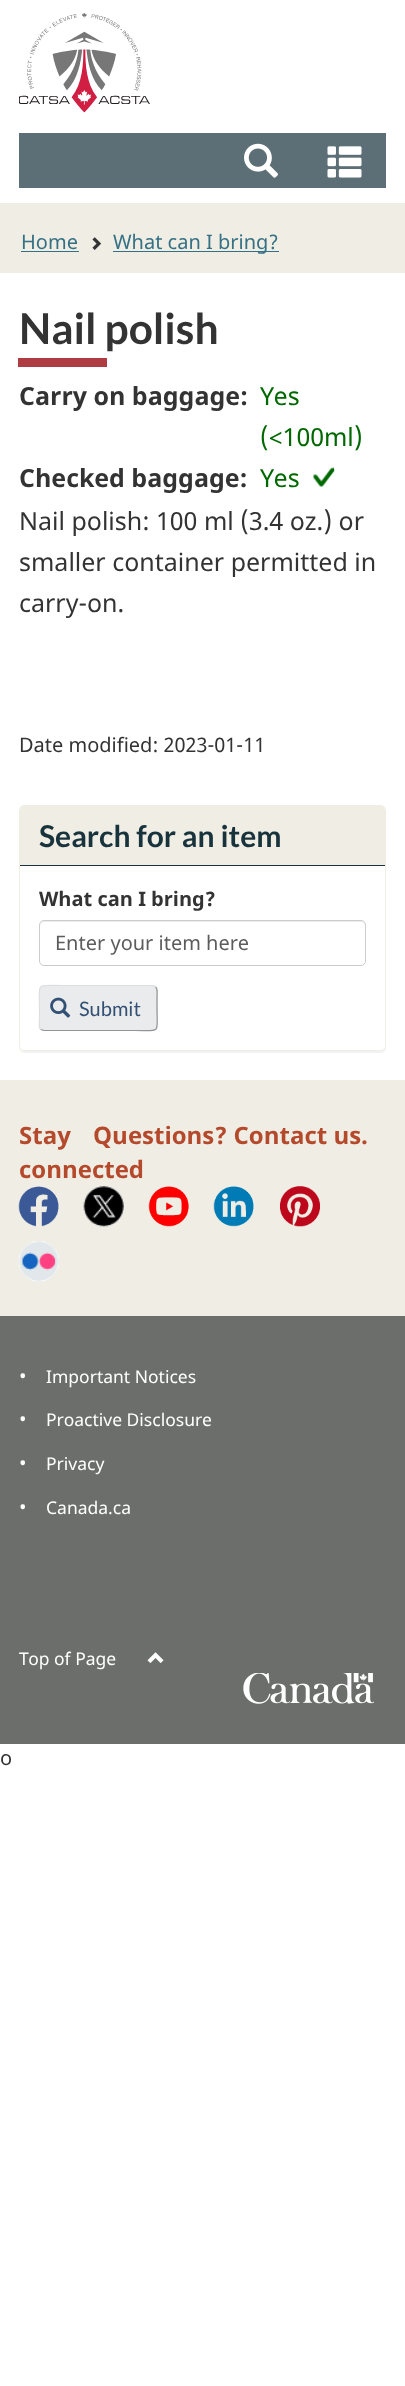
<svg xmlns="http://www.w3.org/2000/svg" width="405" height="2386">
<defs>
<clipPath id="clip1"><path d="M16 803h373v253h-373zm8 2h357c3 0 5 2 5 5v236c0 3-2 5-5 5h-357c-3 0-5-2-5-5v-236c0-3 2-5 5-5z" clip-rule="evenodd"/></clipPath>
</defs>
<rect width="100%" height="100%" fill="#fff"/>
<image x="19" y="13" width="131" height="100" href="media/1.png"/>
<rect x="19" y="133" width="367" height="55" fill="#5d6f76"/>
<image x="244" y="143" width="34" height="35" href="media/2.png"/>
<image x="327" y="146" width="35" height="32" href="media/3.png"/>
<rect y="203" width="405" height="70" fill="#efede4"/>
<text x="21" y="249" style="font-family:Noto Sans;font-size:20px;fill:#357185">Home</text>
<rect x="21" y="251" width="58" height="1" fill="#357185"/>
<image x="92" y="237" width="10" height="13" href="media/4.png"/>
<rect x="113" y="251" width="166" height="1" fill="#357185"/>
<text x="113" y="249" style="font-family:Noto Sans;font-size:20px;fill:#357185">What can I bring?</text>
<rect x="18" y="358" width="89" height="9" fill="#af3c43"/>
<text x="19" y="344" style="font-family:Lato;font-size:42.5px;font-weight:bold;fill:#333">Nail polish</text>
<text x="19" y="405" style="font-family:Noto Sans;font-size:25px;font-weight:bold;fill:#333">Carry on baggage:</text>
<text x="260" y="405" style="font-family:Noto Sans;font-size:25px;fill:#006800">Yes</text>
<text x="260" y="446" style="font-family:Noto Sans;font-size:25px;fill:#006800">(&lt;100ml)</text>
<text x="19" y="487" style="font-family:Noto Sans;font-size:25px;font-weight:bold;fill:#333">Checked baggage:</text>
<text x="260" y="487" style="font-family:Noto Sans;font-size:25px;fill:#006800">Yes</text>
<image x="313" y="467" width="22" height="20" href="media/5.png"/>
<text x="19" y="530" style="font-family:Noto Sans;font-size:25px;fill:#333">Nail polish: 100 ml (3.4 oz.) or</text>
<text x="19" y="571" style="font-family:Noto Sans;font-size:25px;fill:#333">smaller container permitted in</text>
<text x="19" y="612" style="font-family:Noto Sans;font-size:25px;fill:#333">carry-on.</text>
<text x="19" y="752" style="font-family:Noto Sans;font-size:20px;fill:#333">Date modified: 2023-01-11</text>
<g clip-path="url(#clip1)">
<rect x="19" y="806" width="367" height="247" rx="5" fill="#0000000d" filter="blur(0.5px)"/>
</g>
<rect x="19.5" y="805.5" width="366" height="245" rx="4.5" fill="none" stroke="#efede4"/>
<path d="M24 806h357c2 0 4 2 4 4v56h-365v-56c0-2 2-4 4-4z" fill="#efede4"/>
<rect x="20" y="865" width="365" height="1" fill="#18333c"/>
<text x="39" y="847" style="font-family:Lato;font-size:30px;font-weight:bold;fill:#18333c">Search for an item</text>
<text x="39" y="906" style="font-family:Noto Sans;font-size:20px;font-weight:bold;fill:#333">What can I bring?</text>
<path d="M44 922h317c2 0 4 2 4 4v-1c0-2-2-4-4-4h-317c-2 0-4 2-4 4v1c0-2 2-4 4-4z" fill="#ececec"/>
<rect x="39.5" y="920.5" width="326" height="45" rx="4.5" fill="none" stroke="#ccc"/>
<text x="55" y="950" style="font-family:Noto Sans;font-size:20px;fill:#5c5c5c">Enter your item here</text>
<rect x="39" y="985" width="119" height="46" rx="5" fill="#eaebed"/>
<path d="M155.5 987c2.5 2 1.5 6.5 1.5 9v12c0 26.5 4.5 22.5-22.5 22.5h-90.5l-3.5-1" fill="none" stroke="#939496" stroke-width="1.2"/>
<path d="M40.5 1029.5c-2-2.5-1-7-1-9.5v-12c0-26-4.5-22.5 22.5-22.5h90.5l3 1.5" fill="none" stroke="#dcdee1" stroke-width="1.2"/>
<image x="50" y="997" width="21" height="21" href="media/6.png"/>
<text x="79" y="1016" style="font-family:Lato;font-size:20px;fill:#335075">Submit</text>
<rect y="1080" width="405" height="236" fill="#efede4"/>
<text x="19" y="1144" style="font-family:Noto Sans;font-size:24px;font-weight:bold;fill:#b5492c">Stay</text>
<text x="19" y="1178" style="font-family:Noto Sans;font-size:24px;font-weight:bold;fill:#b5492c">connected</text>
<text x="93" y="1144" style="font-family:Noto Sans;font-size:24px;font-weight:bold;fill:#b5492c">Questions? Contact us.</text>
<image x="18" y="1186" width="41" height="41" href="media/7.png"/>
<image x="83" y="1186" width="41" height="41" href="media/8.png"/>
<image x="148" y="1186" width="41" height="41" href="media/9.png"/>
<image x="213" y="1186" width="41" height="41" href="media/10.png"/>
<image x="280" y="1186" width="40" height="41" href="media/11.png"/>
<image x="18" y="1241" width="41" height="41" href="media/12.png"/>
<rect y="1316" width="405" height="428" fill="#6c6e6c"/>
<text x="19" y="1383" style="font-family:Noto Sans;font-size:20px;fill:#fff">•</text>
<text x="46" y="1383" style="font-family:Noto Sans;font-size:17.5px;fill:#fff">Important Notices</text>
<text x="19" y="1426" style="font-family:Noto Sans;font-size:20px;fill:#fff">•</text>
<text x="46" y="1426" style="font-family:Noto Sans;font-size:17.5px;fill:#fff">Proactive Disclosure</text>
<text x="19" y="1470" style="font-family:Noto Sans;font-size:20px;fill:#fff">•</text>
<text x="46" y="1470" style="font-family:Noto Sans;font-size:17.5px;fill:#fff">Privacy</text>
<text x="19" y="1514" style="font-family:Noto Sans;font-size:20px;fill:#fff">•</text>
<text x="46" y="1514" style="font-family:Noto Sans;font-size:17.5px;fill:#fff">Canada.ca</text>
<text x="19" y="1665" style="font-family:Noto Sans;font-size:17.5px;fill:#fff">Top of Page</text>
<image x="147" y="1652" width="17" height="11" href="media/13.png"/>
<image x="243" y="1673" width="131" height="31" href="media/14.png"/>
<text x="0" y="1765" style="font-family:Noto Sans;font-size:20px;fill:#333">o</text>
</svg>
